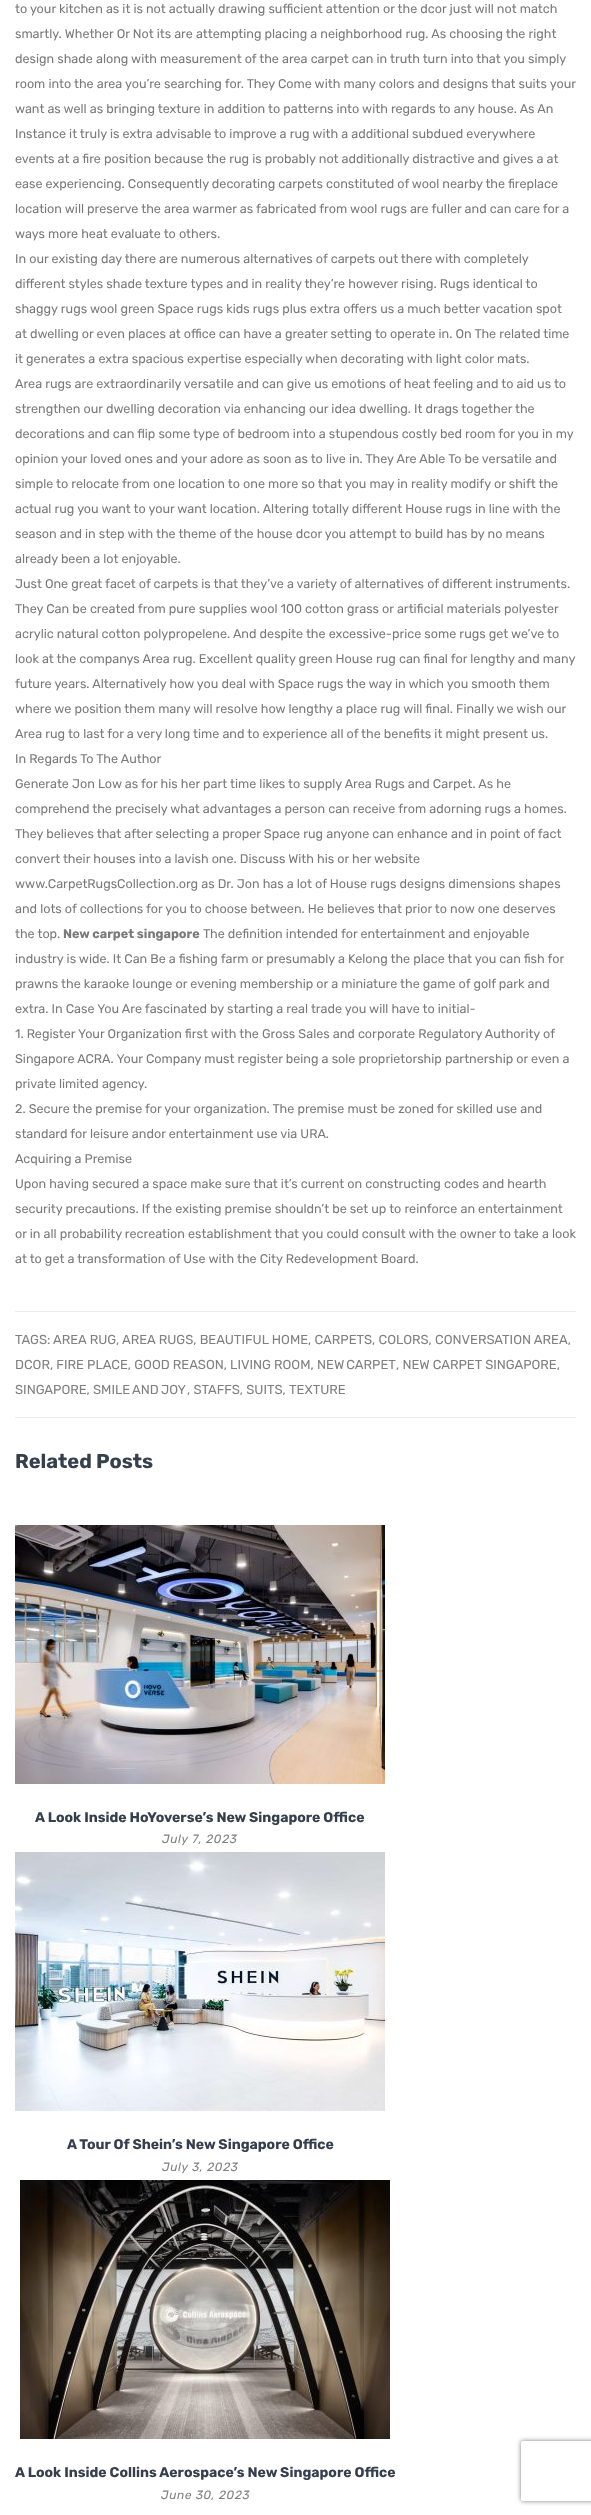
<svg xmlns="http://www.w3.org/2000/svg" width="591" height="2515">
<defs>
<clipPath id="clip1"><path d="M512 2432h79v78h-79zm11 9h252c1 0 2 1 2 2v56c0 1-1 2-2 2h-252c-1 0-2-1-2-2v-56c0-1 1-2 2-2z" clip-rule="evenodd"/></clipPath>
</defs>
<rect width="100%" height="100%" fill="#fff"/>
<text x="15" y="13" style="font-family:Rubik;font-size:12.6px;fill:#7a7a7a">to your kitchen as it is not actually drawing sufficient attention or the dcor just will not match</text>
<text x="15" y="38" style="font-family:Rubik;font-size:12.6px;fill:#7a7a7a">smartly. Whether Or Not its are attempting placing a neighborhood rug. As choosing the right</text>
<text x="15" y="63" style="font-family:Rubik;font-size:12.6px;fill:#7a7a7a">design shade along with measurement of the area carpet can in truth turn into that you simply</text>
<text x="15" y="88" style="font-family:Rubik;font-size:12.6px;fill:#7a7a7a">room into the area you’re searching for. They Come with many colors and designs that suits your</text>
<text x="15" y="113" style="font-family:Rubik;font-size:12.6px;fill:#7a7a7a">want as well as bringing texture in addition to patterns into with regards to any house. As An</text>
<text x="15" y="138" style="font-family:Rubik;font-size:12.6px;fill:#7a7a7a">Instance it truly is extra advisable to improve a rug with a additional subdued everywhere</text>
<text x="15" y="163" style="font-family:Rubik;font-size:12.6px;fill:#7a7a7a">events at a fire position because the rug is probably not additionally distractive and gives a at</text>
<text x="15" y="188" style="font-family:Rubik;font-size:12.6px;fill:#7a7a7a">ease experiencing. Consequently decorating carpets constituted of wool nearby the fireplace</text>
<text x="15" y="213" style="font-family:Rubik;font-size:12.6px;fill:#7a7a7a">location will preserve the area warmer as fabricated from wool rugs are fuller and can care for a</text>
<text x="15" y="238" style="font-family:Rubik;font-size:12.6px;fill:#7a7a7a">ways more heat evaluate to others.</text>
<text x="15" y="263" style="font-family:Rubik;font-size:12.6px;fill:#7a7a7a">In our existing day there are numerous alternatives of carpets out there with completely</text>
<text x="15" y="288" style="font-family:Rubik;font-size:12.6px;fill:#7a7a7a">different styles shade texture types and in reality they’re however rising. Rugs identical to</text>
<text x="15" y="313" style="font-family:Rubik;font-size:12.6px;fill:#7a7a7a">shaggy rugs wool green Space rugs kids rugs plus extra offers us a much better vacation spot</text>
<text x="15" y="338" style="font-family:Rubik;font-size:12.6px;fill:#7a7a7a">at dwelling or even places at office can have a greater setting to operate in. On The related time</text>
<text x="15" y="363" style="font-family:Rubik;font-size:12.6px;fill:#7a7a7a">it generates a extra spacious expertise especially when decorating with light color mats.</text>
<text x="15" y="388" style="font-family:Rubik;font-size:12.6px;fill:#7a7a7a">Area rugs are extraordinarily versatile and can give us emotions of heat feeling and to aid us to</text>
<text x="15" y="413" style="font-family:Rubik;font-size:12.6px;fill:#7a7a7a">strengthen our dwelling decoration via enhancing our idea dwelling. It drags together the</text>
<text x="15" y="438" style="font-family:Rubik;font-size:12.6px;fill:#7a7a7a">decorations and can flip some type of bedroom into a stupendous costly bed room for you in my</text>
<text x="15" y="463" style="font-family:Rubik;font-size:12.6px;fill:#7a7a7a">opinion your loved ones and your adore as soon as to live in. They Are Able To be versatile and</text>
<text x="15" y="488" style="font-family:Rubik;font-size:12.6px;fill:#7a7a7a">simple to relocate from one location to one more so that you may in reality modify or shift the</text>
<text x="15" y="513" style="font-family:Rubik;font-size:12.6px;fill:#7a7a7a">actual rug you want to your want location. Altering totally different House rugs in line with the</text>
<text x="15" y="538" style="font-family:Rubik;font-size:12.6px;fill:#7a7a7a">season and in step with the theme of the house dcor you attempt to build has by no means</text>
<text x="15" y="563" style="font-family:Rubik;font-size:12.6px;fill:#7a7a7a">already been a lot enjoyable.</text>
<text x="15" y="588" style="font-family:Rubik;font-size:12.6px;fill:#7a7a7a">Just One great facet of carpets is that they’ve a variety of alternatives of different instruments.</text>
<text x="15" y="613" style="font-family:Rubik;font-size:12.6px;fill:#7a7a7a">They Can be created from pure supplies wool 100 cotton grass or artificial materials polyester</text>
<text x="15" y="638" style="font-family:Rubik;font-size:12.6px;fill:#7a7a7a">acrylic natural cotton polypropelene. And despite the excessive-price some rugs get we’ve to</text>
<text x="15" y="663" style="font-family:Rubik;font-size:12.6px;fill:#7a7a7a">look at the companys Area rug. Excellent quality green House rug can final for lengthy and many</text>
<text x="15" y="688" style="font-family:Rubik;font-size:12.6px;fill:#7a7a7a">future years. Alternatively how you deal with Space rugs the way in which you smooth them</text>
<text x="15" y="713" style="font-family:Rubik;font-size:12.6px;fill:#7a7a7a">where we position them many will resolve how lengthy a place rug will final. Finally we wish our</text>
<text x="15" y="738" style="font-family:Rubik;font-size:12.6px;fill:#7a7a7a">Area rug to last for a very long time and to experience all of the benefits it might present us.</text>
<text x="15" y="763" style="font-family:Rubik;font-size:12.6px;fill:#7a7a7a">In Regards To The Author</text>
<text x="15" y="788" style="font-family:Rubik;font-size:12.6px;fill:#7a7a7a">Generate Jon Low as for his her part time likes to supply Area Rugs and Carpet. As he</text>
<text x="15" y="813" style="font-family:Rubik;font-size:12.6px;fill:#7a7a7a">comprehend the precisely what advantages a person can receive from adorning rugs a homes.</text>
<text x="15" y="838" style="font-family:Rubik;font-size:12.6px;fill:#7a7a7a">They believes that after selecting a proper Space rug anyone can enhance and in point of fact</text>
<text x="15" y="863" style="font-family:Rubik;font-size:12.6px;fill:#7a7a7a">convert their houses into a lavish one. Discuss With his or her website</text>
<text x="15" y="888" style="font-family:Rubik;font-size:12.6px;fill:#7a7a7a">www.CarpetRugsCollection.org as Dr. Jon has a lot of House rugs designs dimensions shapes</text>
<text x="15" y="913" style="font-family:Rubik;font-size:12.6px;fill:#7a7a7a">and lots of collections for you to choose between. He believes that prior to now one deserves</text>
<text x="15" y="938" style="font-family:Rubik;font-size:12.6px;fill:#7a7a7a">the top.</text>
<text x="63" y="938" style="font-family:Rubik;font-size:12.6px;font-weight:bold;fill:#7a7a7a">New carpet singapore</text>
<text x="203" y="938" style="font-family:Rubik;font-size:12.6px;fill:#7a7a7a">The definition intended for entertainment and enjoyable</text>
<text x="15" y="963" style="font-family:Rubik;font-size:12.6px;fill:#7a7a7a">industry is wide. It Can Be a fishing farm or presumably a Kelong the place that you can fish for</text>
<text x="15" y="988" style="font-family:Rubik;font-size:12.6px;fill:#7a7a7a">prawns the karaoke lounge or evening membership or a miniature the game of golf park and</text>
<text x="15" y="1013" style="font-family:Rubik;font-size:12.6px;fill:#7a7a7a">extra. In Case You Are fascinated by starting a real trade you will have to initial-</text>
<text x="15" y="1038" style="font-family:Rubik;font-size:12.6px;fill:#7a7a7a">1. Register Your Organization first with the Gross Sales and corporate Regulatory Authority of</text>
<text x="15" y="1063" style="font-family:Rubik;font-size:12.6px;fill:#7a7a7a">Singapore ACRA. Your Company must register being a sole proprietorship partnership or even a</text>
<text x="15" y="1088" style="font-family:Rubik;font-size:12.6px;fill:#7a7a7a">private limited agency.</text>
<text x="15" y="1113" style="font-family:Rubik;font-size:12.6px;fill:#7a7a7a">2. Secure the premise for your organization. The premise must be zoned for skilled use and</text>
<text x="15" y="1138" style="font-family:Rubik;font-size:12.6px;fill:#7a7a7a">standard for leisure andor entertainment use via URA.</text>
<text x="15" y="1163" style="font-family:Rubik;font-size:12.6px;fill:#7a7a7a">Acquiring a Premise</text>
<text x="15" y="1188" style="font-family:Rubik;font-size:12.6px;fill:#7a7a7a">Upon having secured a space make sure that it’s current on constructing codes and hearth</text>
<text x="15" y="1213" style="font-family:Rubik;font-size:12.6px;fill:#7a7a7a">security precautions. If the existing premise shouldn’t be set up to reinforce an entertainment</text>
<text x="15" y="1238" style="font-family:Rubik;font-size:12.6px;fill:#7a7a7a">or in all probability recreation establishment that you could consult with the owner to take a look</text>
<text x="15" y="1263" style="font-family:Rubik;font-size:12.6px;fill:#7a7a7a">at to get a transformation of Use with the City Redevelopment Board.</text>
<rect x="15" y="1311" width="561" height="1" fill="#ebebeb"/>
<rect x="15" y="1417" width="561" height="1" fill="#ebebeb"/>
<text x="15" y="1344" style="font-family:Rubik;font-size:13px;fill:#808080">TAGS:</text>
<text x="53" y="1344" style="font-family:Rubik;font-size:13px;fill:#808080">AREA RUG,</text>
<text x="122" y="1344" style="font-family:Rubik;font-size:13px;fill:#808080">AREA RUGS, BEAUTIFUL HOME, CARPETS, COLORS, CONVERSATION AREA,</text>
<text x="15" y="1369" style="font-family:Rubik;font-size:13px;fill:#808080">DCOR, FIRE PLACE, GOOD REASON, LIVING ROOM,</text>
<text x="317" y="1369" word-spacing="-1" style="font-family:Rubik;font-size:13px;fill:#808080">NEW CARPET</text>
<text x="396" y="1369" style="font-family:Rubik;font-size:13px;fill:#808080">, NEW CARPET SINGAPORE,</text>
<text x="15" y="1394" style="font-family:Rubik;font-size:13px;fill:#808080">SINGAPORE,</text>
<text x="93" y="1394" word-spacing="-1" style="font-family:Rubik;font-size:13px;fill:#808080">SMILE AND JOY</text>
<text x="187" y="1394" style="font-family:Rubik;font-size:13px;fill:#808080">, STAFFS, SUITS,</text>
<text x="289" y="1394" style="font-family:Rubik;font-size:13px;fill:#808080">TEXTURE</text>
<text x="15" y="1468" style="font-family:Rubik;font-size:20px;font-weight:bold;fill:#363f4d">Related Posts</text>
<image x="15" y="1525" width="370" height="259" href="media/1.png"/>
<text x="35" y="1822" style="font-family:Rubik;font-size:14px;font-weight:bold;fill:#363f4d">A Look Inside HoYoverse’s New Singapore Office</text>
<text x="162" y="1843" style="font-family:Rubik;font-size:12px;font-style:italic;letter-spacing:0.6px;fill:#808080">July 7, 2023</text>
<image x="15" y="1852" width="370" height="259" href="media/2.png"/>
<text x="67" y="2149" style="font-family:Rubik;font-size:14px;font-weight:bold;fill:#363f4d">A Tour Of Shein’s New Singapore Office</text>
<text x="162" y="2171" style="font-family:Rubik;font-size:12px;font-style:italic;letter-spacing:0.6px;fill:#808080">July 3, 2023</text>
<image x="20" y="2180" width="370" height="259" href="media/3.png"/>
<text x="15" y="2477" style="font-family:Rubik;font-size:14px;font-weight:bold;fill:#363f4d">A Look Inside Collins Aerospace’s New Singapore Office</text>
<text x="161" y="2499" style="font-family:Rubik;font-size:12px;font-style:italic;letter-spacing:0.6px;fill:#808080">June 30, 2023</text>
<g clip-path="url(#clip1)">
<rect x="521" y="2441" width="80" height="60" rx="2" fill="#808080" filter="blur(2.5px)"/>
</g>
</svg>
